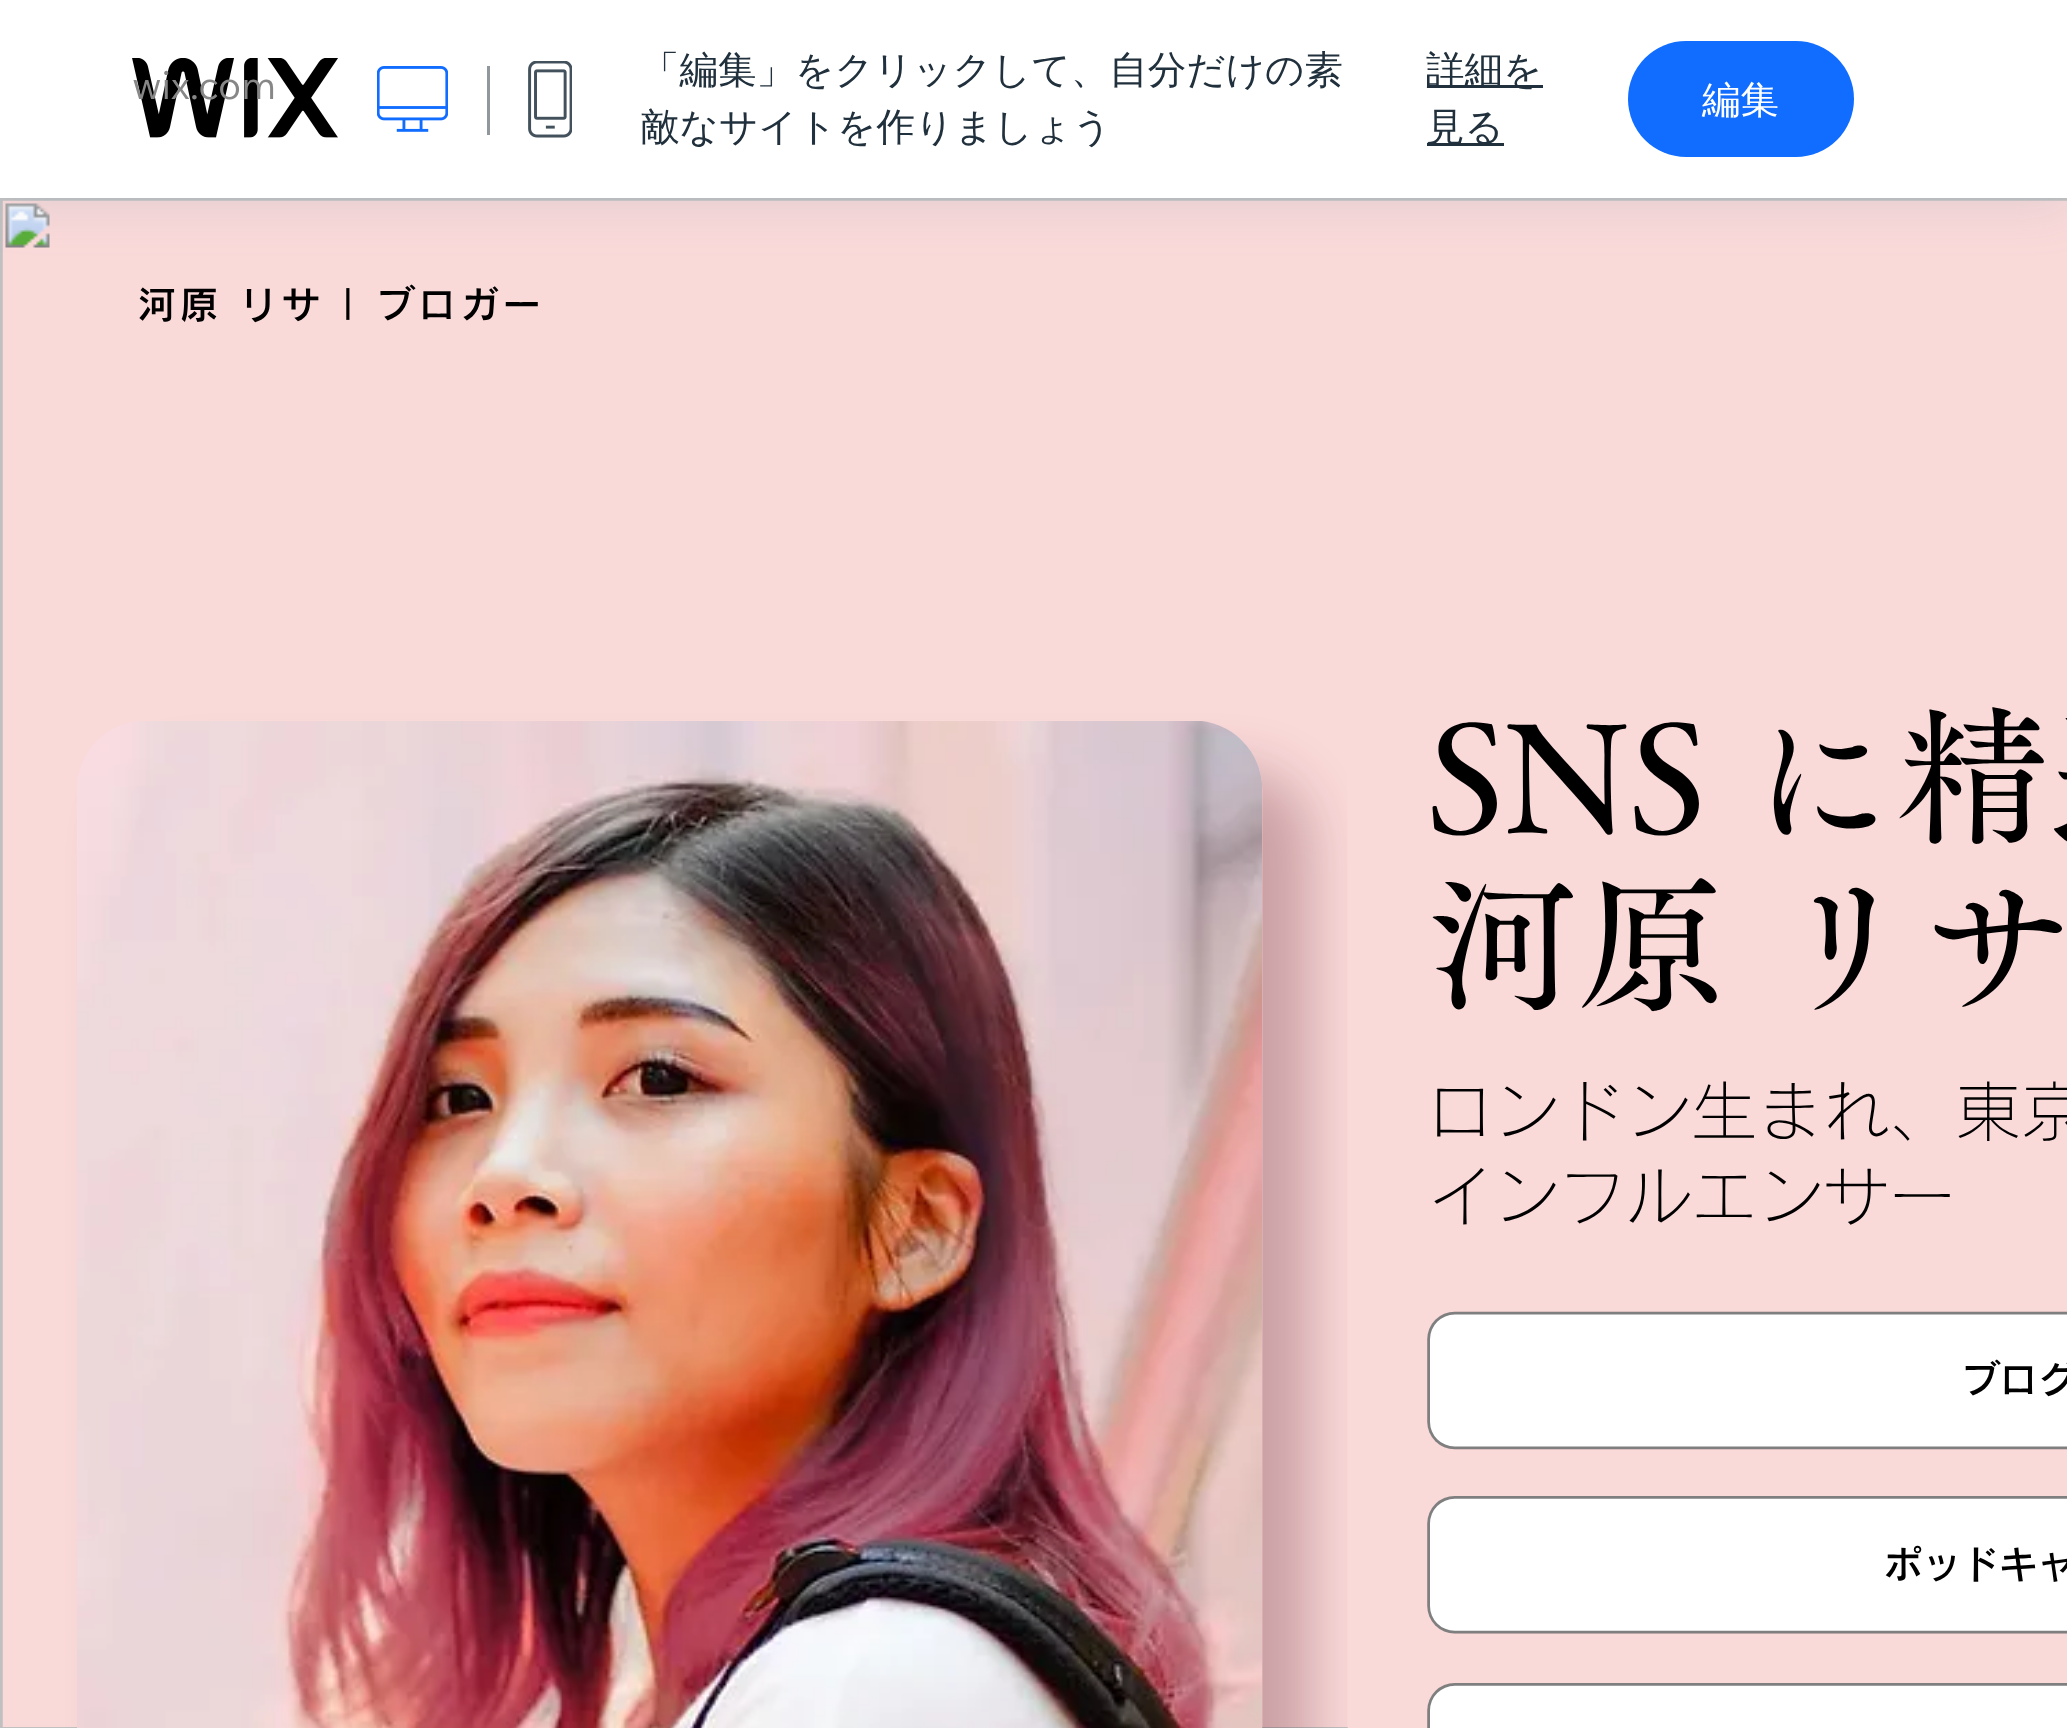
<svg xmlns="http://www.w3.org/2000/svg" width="2067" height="1728">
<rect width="100%" height="100%" fill="#fff"/>
<image x="0" y="198" width="2067" height="1530" href="media/4.png"/>
<rect y="6" width="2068" height="198" fill="#81a2b633" filter="blur(25px)"/>
<rect width="2067" height="198" fill="#fff"/>
<image x="132" y="58" width="206" height="80" href="media/1.png"/>
<text x="132" y="99" style="font-family:Wix Madefor Text;font-size:38.5px;fill:#878787">wix.com</text>
<image x="377" y="66" width="71" height="66" href="media/2.png"/>
<rect x="487" y="66" width="3" height="69" fill="#90989e"/>
<image x="528" y="61" width="44" height="77" href="media/3.png"/>
<text x="641" y="83" style="font-family:WenQuanYi Zen Hei;font-size:38.5px;font-weight:500;fill:#20303c">「編集」をクリックして、自分だけの素</text>
<text x="641" y="140" style="font-family:WenQuanYi Zen Hei;font-size:38.5px;font-weight:500;fill:#20303c">敵なサイトを作りましょう</text>
<rect x="1427" y="85" width="116" height="3" fill="#20303c"/>
<text x="1426" y="83" style="font-family:WenQuanYi Zen Hei;font-size:38.5px;font-weight:500;fill:#20303c">詳細を</text>
<rect x="1427" y="143" width="77" height="3" fill="#20303c"/>
<text x="1426" y="140" style="font-family:WenQuanYi Zen Hei;font-size:38.5px;font-weight:500;fill:#20303c">見る</text>
<rect x="1628" y="41" width="226" height="116" rx="58" fill="#116dff"/>
<text x="1702" y="113" style="font-family:WenQuanYi Zen Hei;font-size:38.5px;font-weight:500;fill:#fff">編集</text>
</svg>
